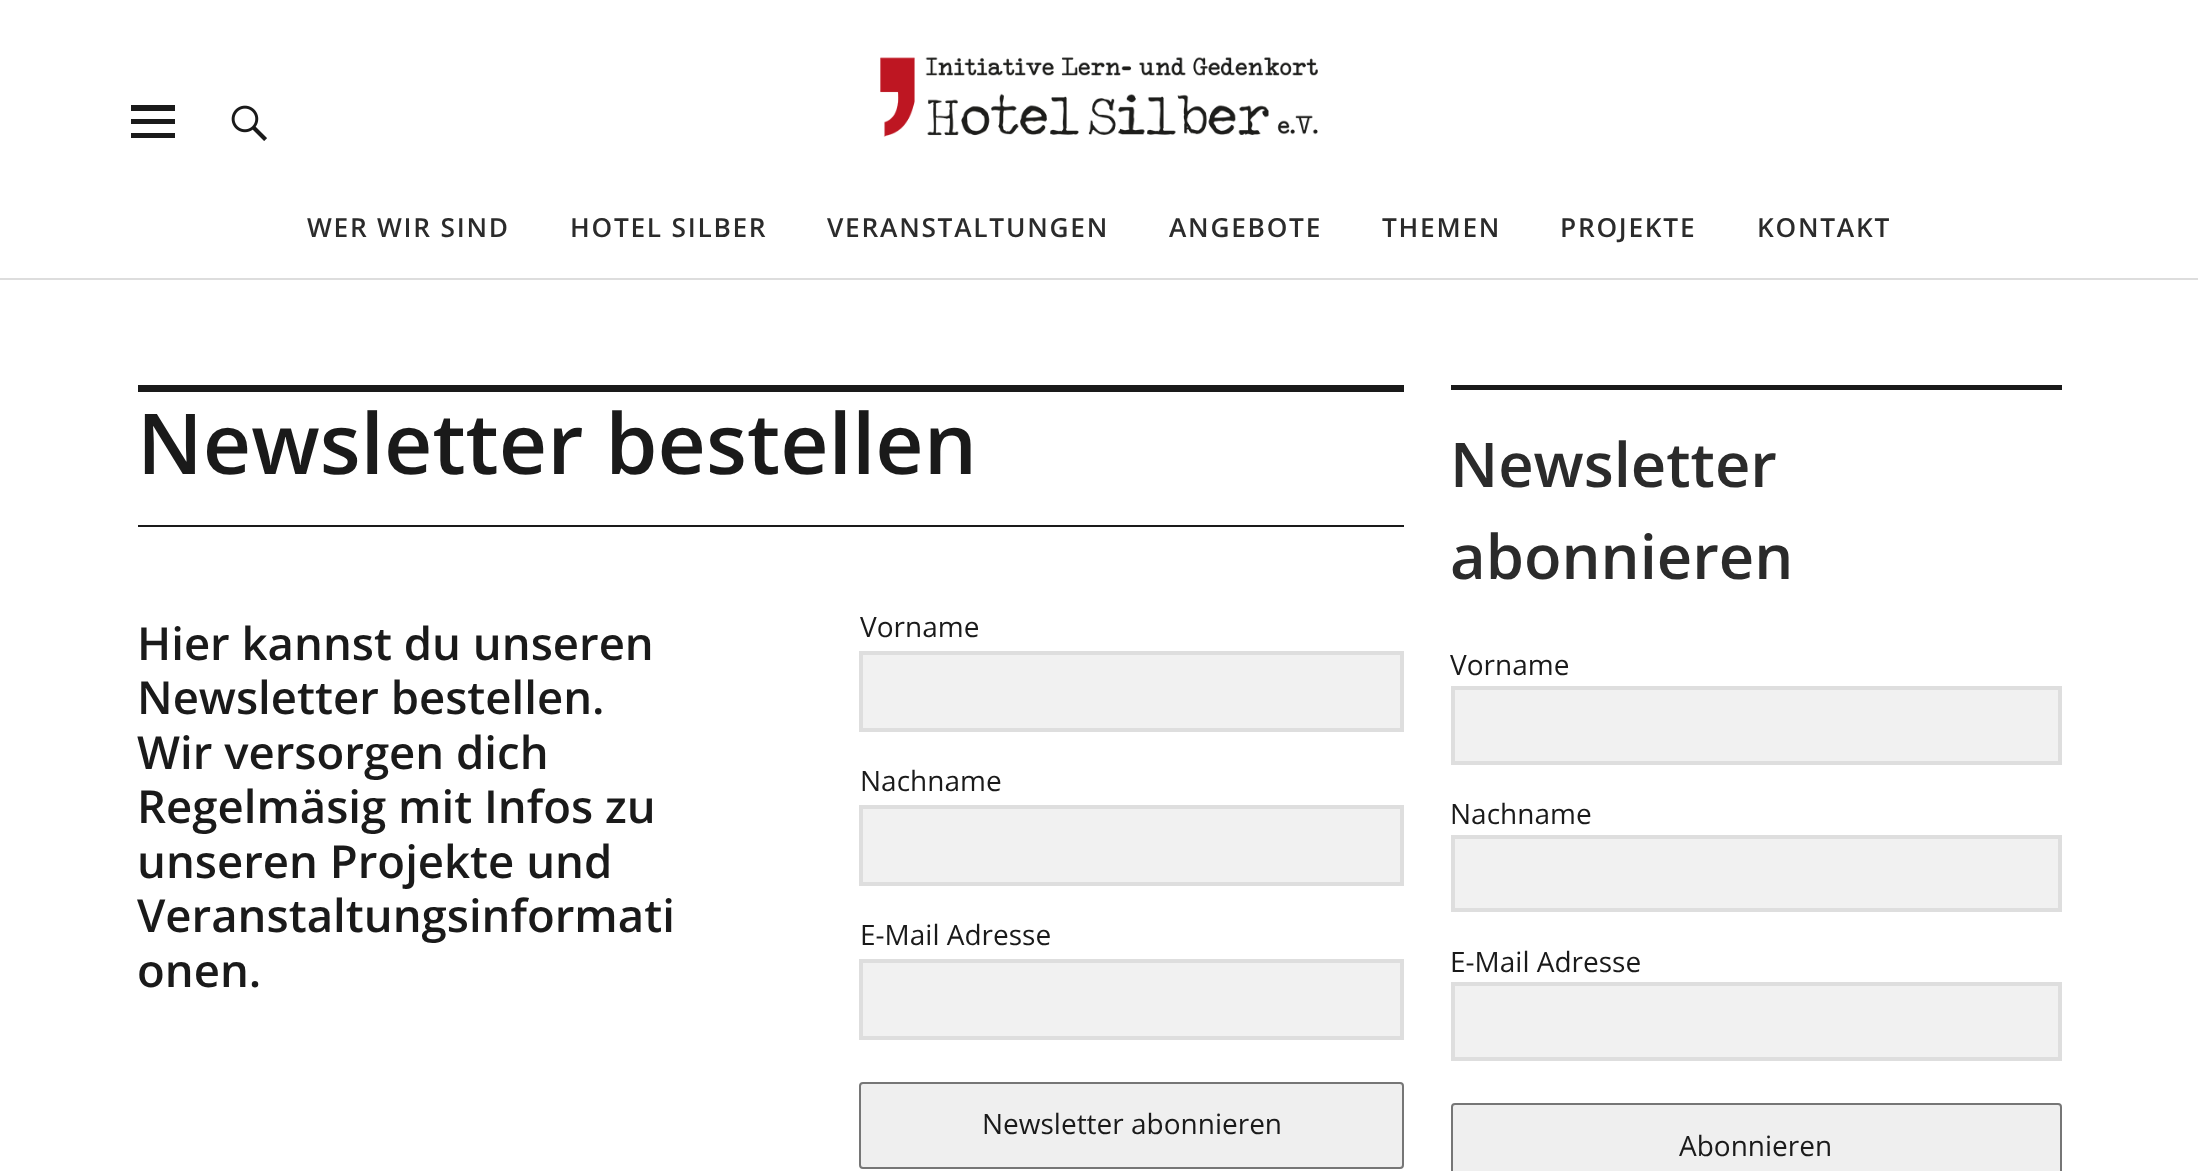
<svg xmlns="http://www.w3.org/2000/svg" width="2198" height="1171">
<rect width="100%" height="100%" fill="#fff"/>
<rect y="278" width="2198" height="2" fill="#ddd"/>
<path d="M131 138v-5h44v5zm0-33h44v6h-44zm0 19v-5h44v5z" fill="#1a1a1a"/>
<image x="880" y="57" width="438" height="80" href="media/1.png"/>
<image x="231" y="105" width="36" height="36" href="media/2.png"/>
<text x="307" y="237" style="font-family:Open Sans;font-size:26.25px;font-weight:600;letter-spacing:1.75px;fill:#2b2b2b">WER WIR SIND</text>
<text x="570" y="237" style="font-family:Open Sans;font-size:26.25px;font-weight:600;letter-spacing:1.75px;fill:#2b2b2b">HOTEL SILBER</text>
<text x="827" y="237" style="font-family:Open Sans;font-size:26.25px;font-weight:600;letter-spacing:1.75px;fill:#2b2b2b">VERANSTALTUNGEN</text>
<text x="1169" y="237" style="font-family:Open Sans;font-size:26.25px;font-weight:600;letter-spacing:1.75px;fill:#2b2b2b">ANGEBOTE</text>
<text x="1382" y="237" style="font-family:Open Sans;font-size:26.25px;font-weight:600;letter-spacing:1.75px;fill:#2b2b2b">THEMEN</text>
<text x="1560" y="237" style="font-family:Open Sans;font-size:26.25px;font-weight:600;letter-spacing:1.75px;fill:#2b2b2b">PROJEKTE</text>
<text x="1757" y="237" style="font-family:Open Sans;font-size:26.25px;font-weight:600;letter-spacing:1.75px;fill:#2b2b2b">KONTAKT</text>
<rect x="138" y="385" width="1266" height="7" fill="#1a1a1a"/>
<rect x="138" y="525" width="1266" height="2" fill="#1a1a1a"/>
<text x="137" y="474" style="font-family:Open Sans;font-size:84px;font-weight:600;fill:#1a1a1a">Newsletter bestellen</text>
<text x="137" y="660" style="font-family:Open Sans;font-size:45.5px;font-weight:600;fill:#1a1a1a">Hier kannst du unseren</text>
<text x="137" y="714" style="font-family:Open Sans;font-size:45.5px;font-weight:600;fill:#1a1a1a">Newsletter bestellen.</text>
<text x="137" y="769" style="font-family:Open Sans;font-size:45.5px;font-weight:600;fill:#1a1a1a">Wir versorgen dich</text>
<text x="137" y="823" style="font-family:Open Sans;font-size:45.5px;font-weight:600;fill:#1a1a1a">Regelmäsig mit Infos zu</text>
<text x="137" y="878" style="font-family:Open Sans;font-size:45.5px;font-weight:600;fill:#1a1a1a">unseren Projekte und</text>
<text x="137" y="932" style="font-family:Open Sans;font-size:45.5px;font-weight:600;fill:#1a1a1a">Veranstaltungsinformati</text>
<text x="137" y="987" style="font-family:Open Sans;font-size:45.5px;font-weight:600;fill:#1a1a1a">onen.</text>
<text x="860" y="637" style="font-family:Open Sans;font-size:28px;fill:#1a1a1a">Vorname</text>
<rect x="861" y="653" width="541" height="77" fill="#f1f1f1" stroke="#dedede" stroke-width="4"/>
<text x="860" y="791" style="font-family:Open Sans;font-size:28px;fill:#1a1a1a">Nachname</text>
<rect x="861" y="807" width="541" height="77" fill="#f1f1f1" stroke="#dedede" stroke-width="4"/>
<text x="860" y="945" style="font-family:Open Sans;font-size:28px;fill:#1a1a1a">E-Mail Adresse</text>
<rect x="861" y="961" width="541" height="77" fill="#f1f1f1" stroke="#dedede" stroke-width="4"/>
<rect x="860" y="1083" width="543" height="85" rx="3" fill="#efefef" stroke="#767676" stroke-width="2"/>
<text x="982" y="1134" style="font-family:Open Sans;font-size:28px;fill:#1a1a1a">Newsletter abonnieren</text>
<rect x="1451" y="385" width="611" height="5" fill="#1a1a1a"/>
<text x="1450" y="487" style="font-family:Open Sans;font-size:61.5px;font-weight:600;fill:#2b2b2b">Newsletter</text>
<text x="1450" y="579" style="font-family:Open Sans;font-size:61.5px;font-weight:600;fill:#2b2b2b">abonnieren</text>
<text x="1450" y="675" style="font-family:Open Sans;font-size:28px;fill:#1a1a1a">Vorname</text>
<rect x="1453" y="688" width="607" height="75" fill="#f1f1f1" stroke="#dedede" stroke-width="4"/>
<text x="1450" y="824" style="font-family:Open Sans;font-size:28px;fill:#1a1a1a">Nachname</text>
<rect x="1453" y="837" width="607" height="73" fill="#f1f1f1" stroke="#dedede" stroke-width="4"/>
<text x="1450" y="972" style="font-family:Open Sans;font-size:28px;fill:#1a1a1a">E-Mail Adresse</text>
<rect x="1453" y="984" width="607" height="75" fill="#f1f1f1" stroke="#dedede" stroke-width="4"/>
<rect x="1452" y="1104" width="609" height="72" rx="3" fill="#efefef" stroke="#767676" stroke-width="2"/>
<text x="1679" y="1156" style="font-family:Open Sans;font-size:28px;fill:#1a1a1a">Abonnieren</text>
</svg>
